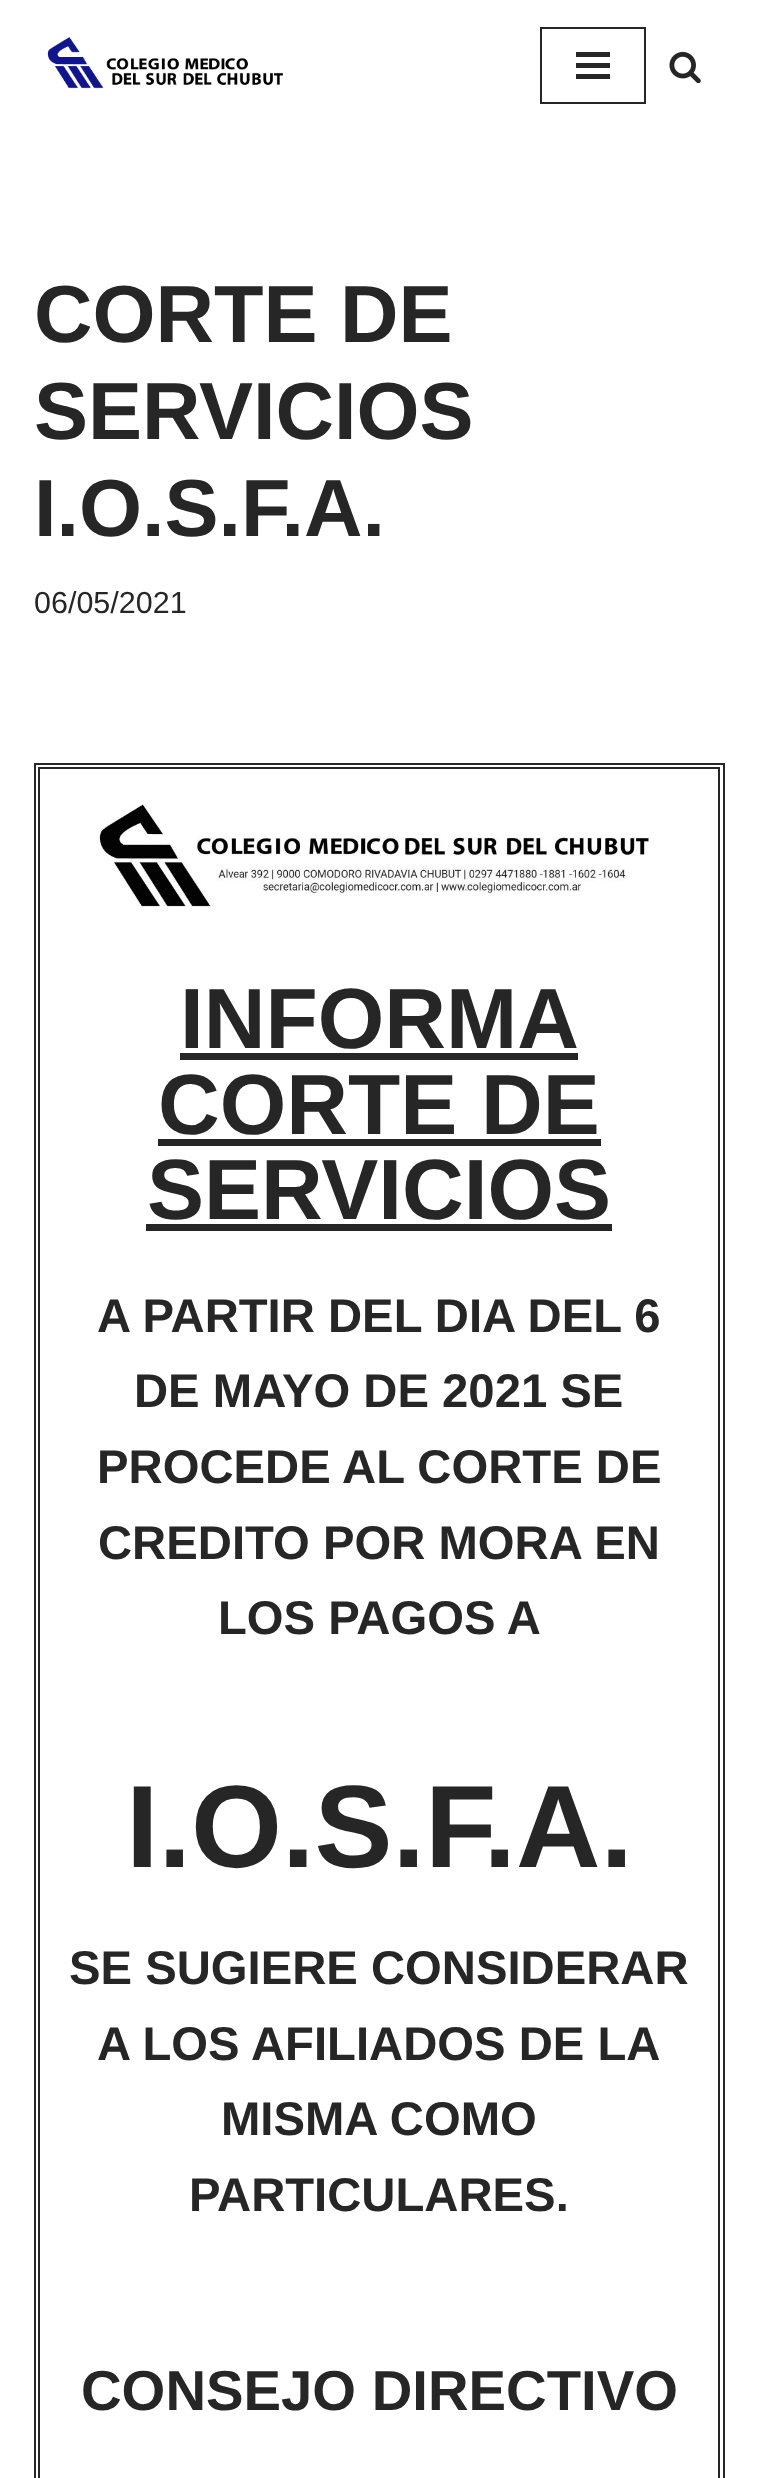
<svg xmlns="http://www.w3.org/2000/svg" width="758" height="2478">
<rect width="100%" height="100%" fill="#fff"/>
<image x="47" y="37" width="236" height="52" href="media/1.png"/>
<rect x="541" y="28" width="104" height="75" fill="none" stroke="#272626" stroke-width="2"/>
<rect x="576" y="52" width="34" height="5" fill="#272626"/>
<rect x="576" y="63" width="34" height="5" fill="#272626"/>
<rect x="576" y="74" width="34" height="5" fill="#272626"/>
<image x="669" y="51" width="32" height="32" href="media/2.png"/>
<text x="34" y="342" style="font-family:Liberation Sans;font-size:81px;font-weight:bold;fill:#272626">CORTE DE</text>
<text x="34" y="439" style="font-family:Liberation Sans;font-size:81px;font-weight:bold;fill:#272626">SERVICIOS</text>
<text x="34" y="536" style="font-family:Liberation Sans;font-size:81px;font-weight:bold;fill:#272626">I.O.S.F.A.</text>
<text x="34" y="613" style="font-family:Liberation Sans;font-size:30.5px;fill:#272626">06/05/2021</text>
<rect x="35" y="764" width="689" height="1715" fill="none" stroke="#272626" stroke-width="2"/>
<rect x="39" y="768" width="680" height="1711" fill="none" stroke="#272626" stroke-width="2"/>
<image x="98" y="802" width="553" height="105" href="media/3.png"/>
<text x="180" y="1048" style="font-family:Liberation Sans;font-size:85.5px;font-weight:bold;fill:#272626">INFORMA</text>
<rect x="180" y="1053" width="398" height="7" fill="#272626"/>
<text x="158" y="1134" style="font-family:Liberation Sans;font-size:85.5px;font-weight:bold;fill:#272626">CORTE DE</text>
<rect x="158" y="1139" width="443" height="7" fill="#272626"/>
<text x="147" y="1219" style="font-family:Liberation Sans;font-size:85.5px;font-weight:bold;fill:#272626">SERVICIOS</text>
<rect x="146" y="1224" width="466" height="7" fill="#272626"/>
<text x="97" y="1332" style="font-family:Liberation Sans;font-size:47.25px;font-weight:bold;fill:#272626">A PARTIR DEL DIA DEL 6</text>
<text x="134" y="1407" style="font-family:Liberation Sans;font-size:47.25px;font-weight:bold;fill:#272626">DE MAYO DE 2021 SE</text>
<text x="97" y="1483" style="font-family:Liberation Sans;font-size:47.25px;font-weight:bold;fill:#272626">PROCEDE AL CORTE DE</text>
<text x="98" y="1559" style="font-family:Liberation Sans;font-size:47.25px;font-weight:bold;fill:#272626">CREDITO POR MORA EN</text>
<text x="218" y="1634" style="font-family:Liberation Sans;font-size:47.25px;font-weight:bold;fill:#272626">LOS PAGOS A</text>
<text x="126" y="1867" style="font-family:Liberation Sans;font-size:117px;font-weight:bold;fill:#272626">I.O.S.F.A.</text>
<text x="69" y="1984" style="font-family:Liberation Sans;font-size:47.25px;font-weight:bold;fill:#272626">SE SUGIERE CONSIDERAR</text>
<text x="97" y="2060" style="font-family:Liberation Sans;font-size:47.25px;font-weight:bold;fill:#272626">A LOS AFILIADOS DE LA</text>
<text x="221" y="2135" style="font-family:Liberation Sans;font-size:47.25px;font-weight:bold;fill:#272626">MISMA COMO</text>
<text x="189" y="2211" style="font-family:Liberation Sans;font-size:47.25px;font-weight:bold;fill:#272626">PARTICULARES.</text>
<text x="81" y="2410" style="font-family:Liberation Sans;font-size:56.25px;font-weight:bold;fill:#272626">CONSEJO DIRECTIVO</text>
</svg>
